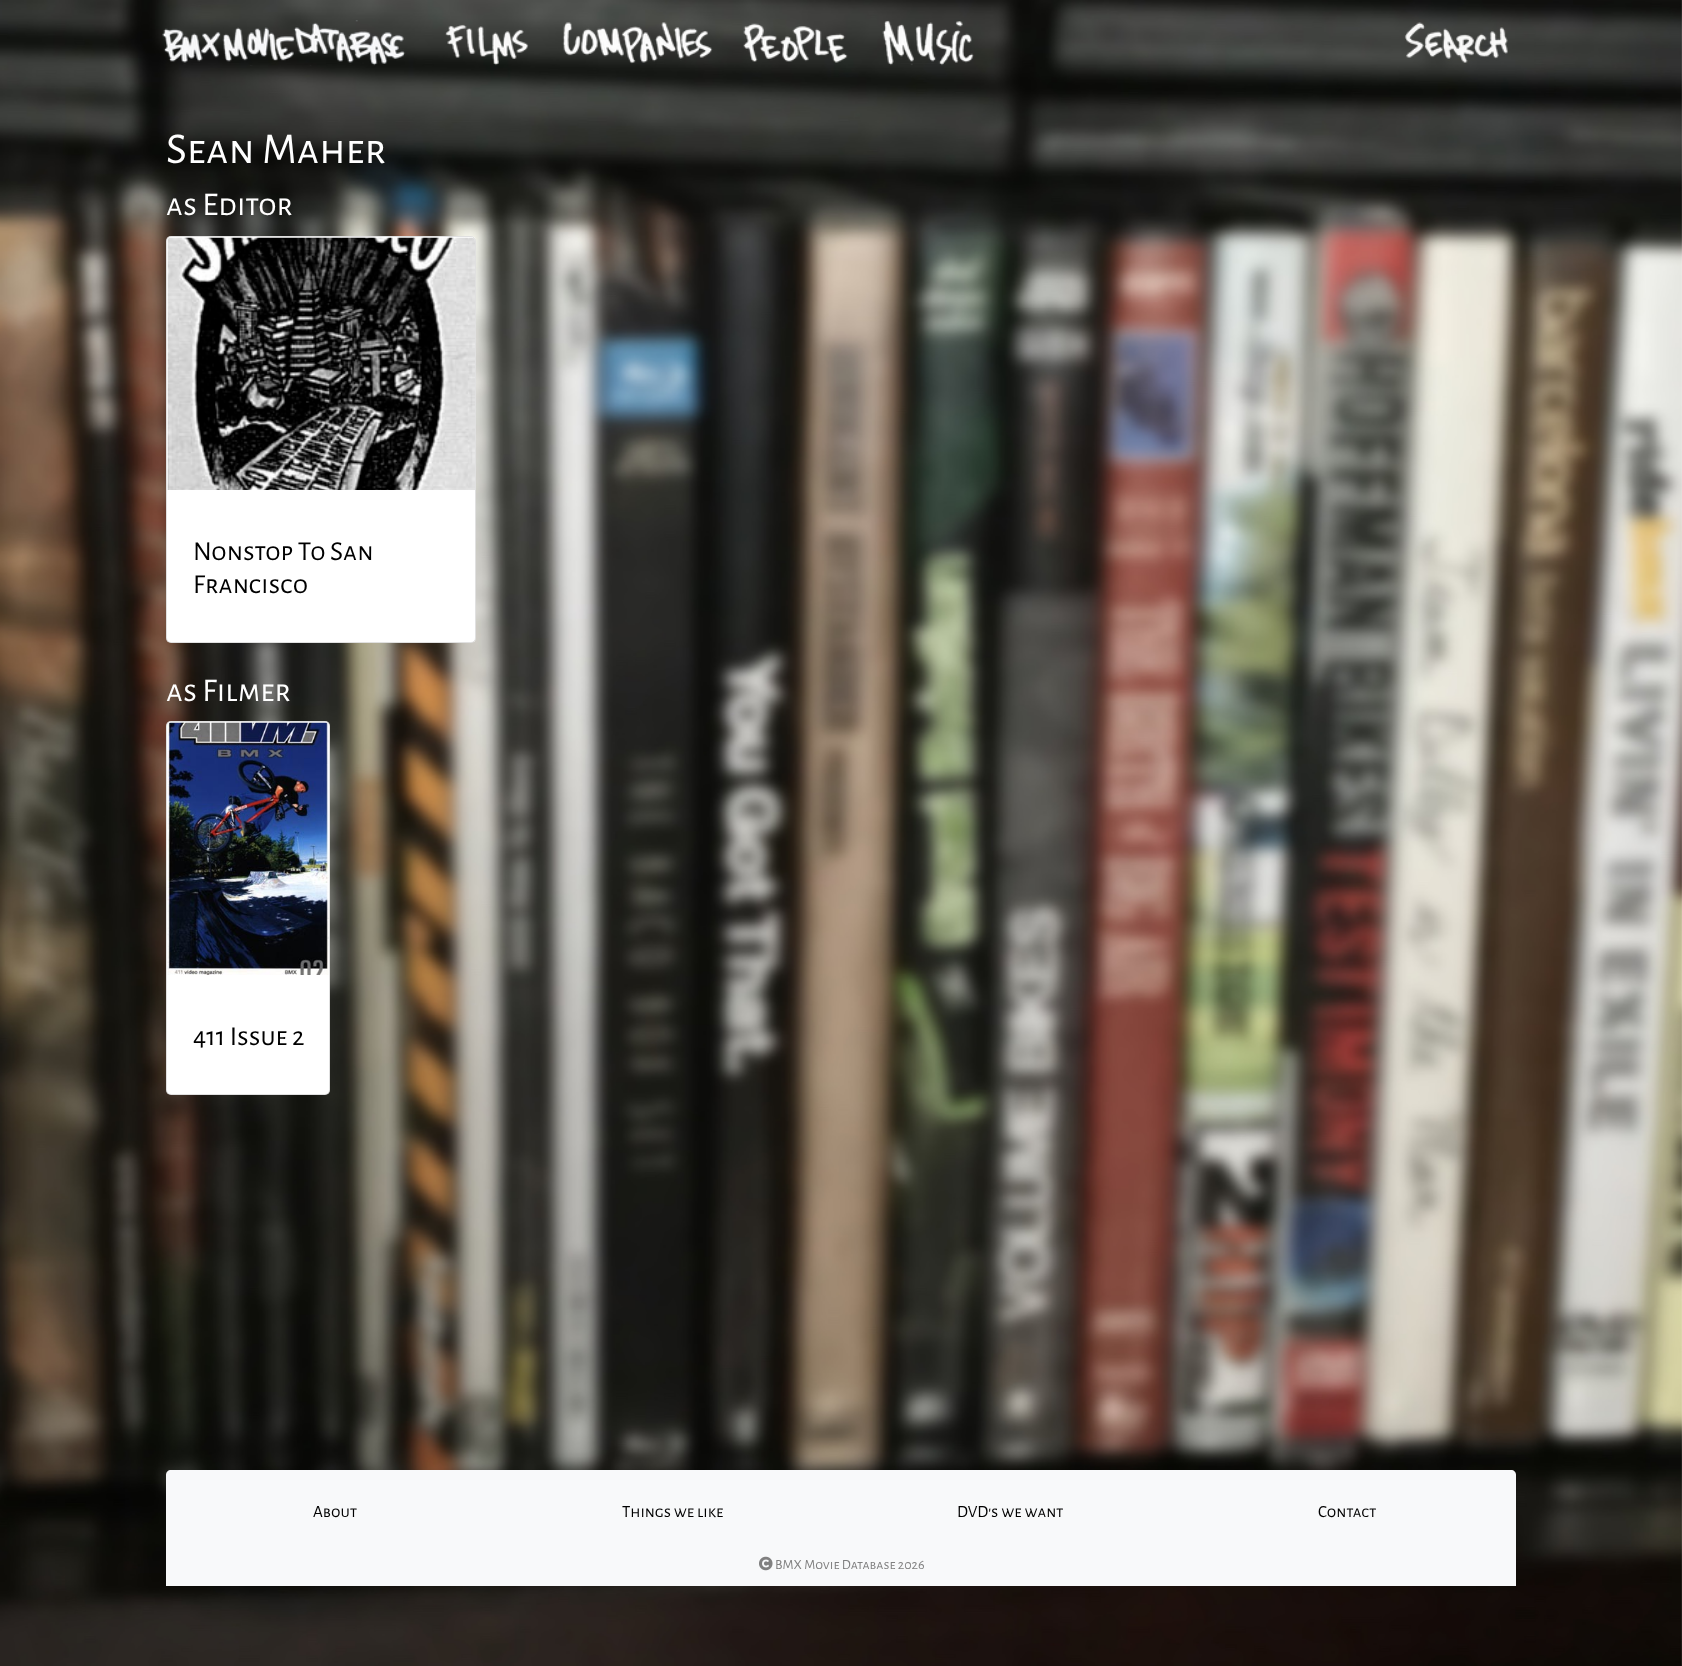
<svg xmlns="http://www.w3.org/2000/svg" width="1682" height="1666">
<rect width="100%" height="100%" fill="#fff"/>
<image x="0" y="0" width="1682" height="1666" href="media/1.png"/>
<image x="162" y="20" width="244" height="46" href="media/2.png"/>
<image x="445" y="24" width="84" height="42" href="media/3.png"/>
<image x="562" y="22" width="151" height="42" href="media/4.png"/>
<image x="743" y="23" width="105" height="40" href="media/5.png"/>
<image x="882" y="20" width="92" height="46" href="media/6.png"/>
<image x="1404" y="22" width="104" height="41" href="media/7.png"/>
<text x="166" y="163" style="font-family:Alegreya Sans SC;font-size:44px;fill:#fff">Sean Maher</text>
<text x="166" y="215" style="font-family:Alegreya Sans SC;font-size:33px;fill:#fff">as Editor</text>
<rect x="166" y="236" width="310" height="407" rx="5" fill="#fff"/>
<rect x="166.5" y="236.5" width="309" height="406" rx="4.5" fill="none" stroke="#0000001f"/>
<image x="167" y="237" width="308" height="253" href="media/8.png"/>
<text x="193" y="560" style="font-family:Alegreya Sans SC;font-size:27.5px;fill:#000">Nonstop To San</text>
<text x="193" y="593" style="font-family:Alegreya Sans SC;font-size:27.5px;fill:#000">Francisco</text>
<text x="166" y="701" style="font-family:Alegreya Sans SC;font-size:33px;fill:#fff">as Filmer</text>
<rect x="166" y="721" width="164" height="374" rx="5" fill="#fff"/>
<rect x="166.5" y="721.5" width="163" height="373" rx="4.5" fill="none" stroke="#0000001f"/>
<image x="167" y="722" width="162" height="253" href="media/9.png"/>
<text x="193" y="1045" style="font-family:Alegreya Sans SC;font-size:27.5px;fill:#000">411 Issue 2</text>
<path d="M171 1470h1340c3 0 5 2 5 5v111h-1350v-111c0-3 2-5 5-5z" fill="#f8f9fa"/>
<text x="313" y="1517" style="font-family:Alegreya Sans SC;font-size:17px;fill:#000">About</text>
<text x="622" y="1517" style="font-family:Alegreya Sans SC;font-size:17px;fill:#000">Things we like</text>
<text x="957" y="1517" style="font-family:Alegreya Sans SC;font-size:17px;fill:#000">DVD's we want</text>
<text x="1318" y="1517" style="font-family:Alegreya Sans SC;font-size:17px;fill:#000">Contact</text>
<image x="759" y="1556" width="14" height="15" href="media/10.png"/>
<text x="775" y="1569" style="font-family:Alegreya Sans SC;font-size:14px;fill:#808080">BMX Movie Database 2026</text>
</svg>
